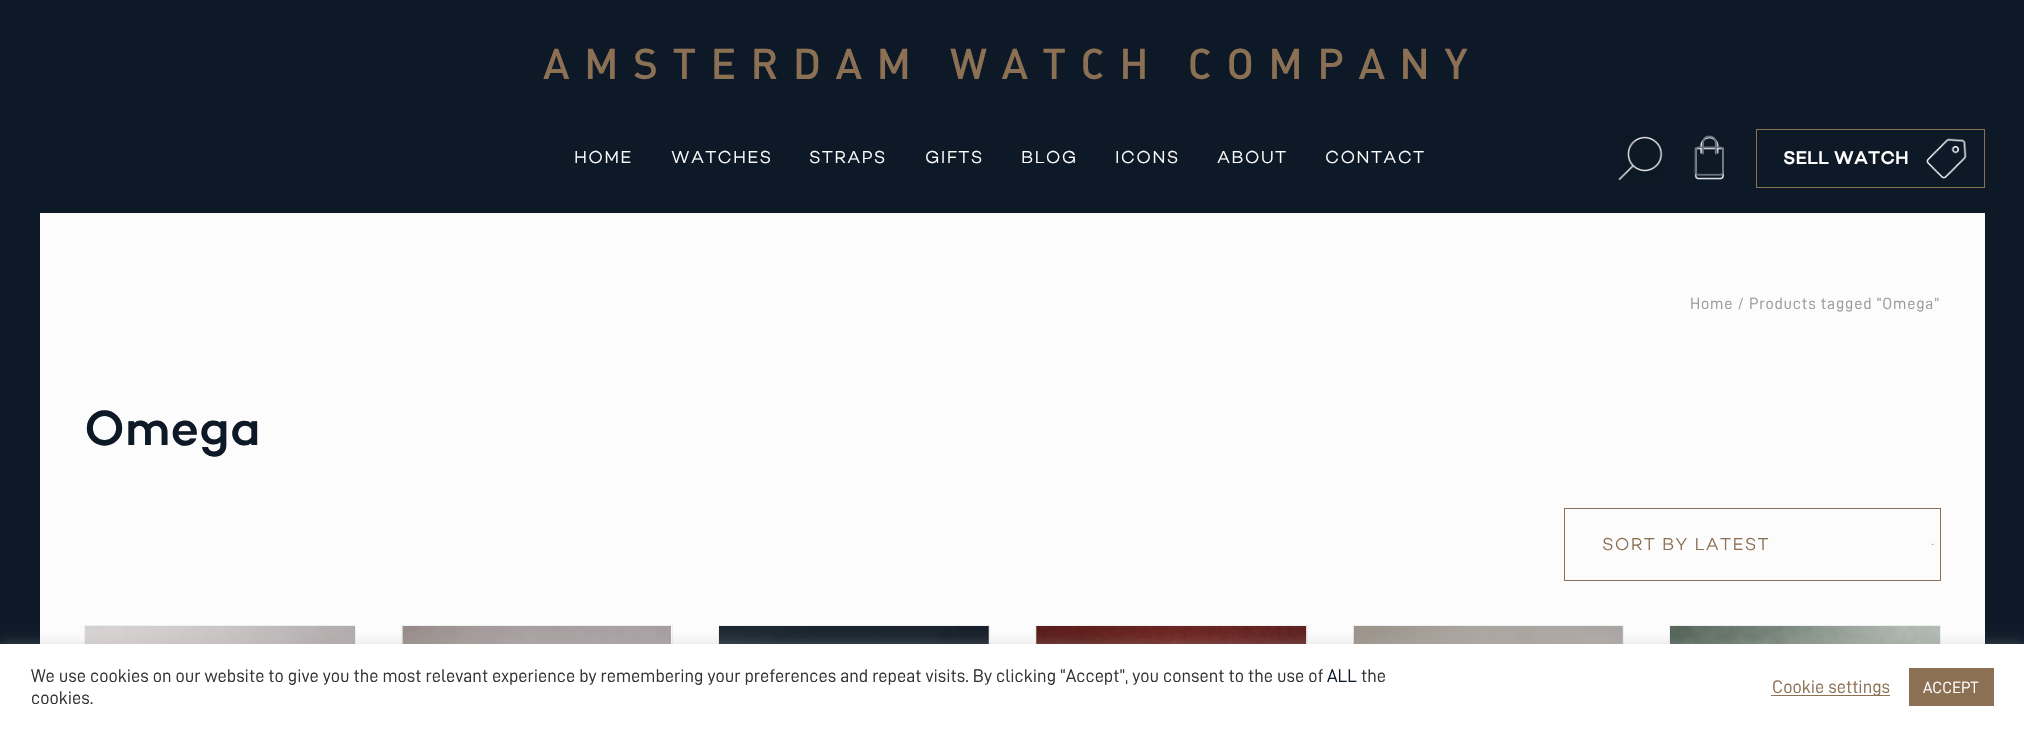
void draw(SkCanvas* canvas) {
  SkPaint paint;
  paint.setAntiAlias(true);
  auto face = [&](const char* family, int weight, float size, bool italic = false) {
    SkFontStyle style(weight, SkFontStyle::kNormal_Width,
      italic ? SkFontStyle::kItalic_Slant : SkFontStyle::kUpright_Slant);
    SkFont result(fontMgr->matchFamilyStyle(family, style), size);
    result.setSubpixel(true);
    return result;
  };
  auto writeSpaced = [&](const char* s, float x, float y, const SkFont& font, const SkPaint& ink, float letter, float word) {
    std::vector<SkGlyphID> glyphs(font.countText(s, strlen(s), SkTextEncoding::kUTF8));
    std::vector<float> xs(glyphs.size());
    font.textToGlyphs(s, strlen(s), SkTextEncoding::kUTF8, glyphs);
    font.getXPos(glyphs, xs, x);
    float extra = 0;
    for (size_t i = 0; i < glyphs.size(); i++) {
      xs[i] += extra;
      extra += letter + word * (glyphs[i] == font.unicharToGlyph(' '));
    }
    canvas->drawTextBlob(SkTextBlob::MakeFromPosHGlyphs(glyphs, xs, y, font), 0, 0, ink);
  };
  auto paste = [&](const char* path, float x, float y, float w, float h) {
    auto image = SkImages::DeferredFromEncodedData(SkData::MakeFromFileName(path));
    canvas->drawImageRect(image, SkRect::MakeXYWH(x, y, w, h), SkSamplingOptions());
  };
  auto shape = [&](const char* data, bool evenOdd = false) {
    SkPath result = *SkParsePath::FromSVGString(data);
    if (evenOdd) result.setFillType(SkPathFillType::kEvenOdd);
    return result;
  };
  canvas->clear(0xff0d1927);
  paste("img/1.png", 1618, 136, 45, 44);
  paint.setColor(0x0d000000);
  canvas->drawRect(SkRect::MakeXYWH(1619, 136, 44, 44), paint);
  paste("img/2.png", 1694, 137, 30, 43);
  paste("img/3.png", 1694, 135, 30, 41);
  paste("img/4.png", 1926, 138, 41, 41);
  paint.setStroke(true);
  paint.setStrokeWidth(1);
  paint.setColor(0xff8c7054);
  canvas->drawRect(SkRect::MakeXYWH(1756.5f, 129.5f, 228, 58), paint);
  paint.setStroke(false);
  paint.setColor(0xfffcfcfc);
  canvas->drawRect(SkRect::MakeXYWH(40, 213, 1945, 431), paint);
  paint.setColor(0xff000000);
  canvas->drawPath(shape("M1931.5 543.5L1932.5 544.5L1934 543.5L1932.5 545Z"), paint);
  paint.setStroke(true);
  paint.setColor(0xff8c7054);
  canvas->drawRect(SkRect::MakeXYWH(1564.5f, 508.5f, 376, 72), paint);
  paint.setColor(0xffedf1f2);
  canvas->drawRect(SkRect::MakeXYWH(84.5f, 625.5f, 271, 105), paint);
  paste("img/5.png", 85, 626, 270, 18);
  canvas->drawRect(SkRect::MakeXYWH(401.5f, 625.5f, 271, 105), paint);
  paste("img/6.png", 402, 626, 269, 18);
  canvas->drawRect(SkRect::MakeXYWH(718.5f, 625.5f, 271, 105), paint);
  paste("img/7.png", 719, 626, 270, 18);
  canvas->drawRect(SkRect::MakeXYWH(1035.5f, 625.5f, 272, 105), paint);
  paste("img/8.png", 1036, 626, 271, 18);
  canvas->drawRect(SkRect::MakeXYWH(1353.5f, 625.5f, 270, 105), paint);
  paste("img/9.png", 1353, 626, 270, 18);
  canvas->drawRect(SkRect::MakeXYWH(1669.5f, 625.5f, 271, 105), paint);
  paste("img/10.png", 1670, 626, 270, 18);
  paint.setStroke(false);
  paint.setColor(0x4dacabab);
  paint.setMaskFilter(SkMaskFilter::MakeBlur(kNormal_SkBlurStyle, 6));
  canvas->drawRect(SkRect::MakeXYWH(0, 643, 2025, 86), paint);
  paint.setMaskFilter(nullptr);
  {
    const struct { float x, y, w, h; SkColor color; } items[] = {
      {0, 644, 2024, 86, 0xffffffff},
      {1771, 695, 119, 1, 0xff8c7054},
      {1909, 668, 85, 38, 0xff8c7054},
    };
    for (auto [x, y, w, h, color] : items) {
      paint.setColor(color);
      canvas->drawRect(SkRect::MakeXYWH(x, y, w, h), paint);
    }
  }
  auto f0 = face("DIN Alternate", 500, 42.5f);
  writeSpaced("AMSTERDAM WATCH COMPANY", 543, 79, f0, paint, 14.4f, 0);
  auto f1 = face("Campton", 300, 17.5f);
  paint.setColor(0xffffffff);
  {
    const struct { const char* s; float x, y; } items[] = {
      {"HOME", 574, 163},
      {"WATCHES", 671, 163},
      {"STRAPS", 809, 163},
      {"GIFTS", 925, 163},
      {"BLOG", 1021, 163},
      {"ICONS", 1115, 163},
      {"ABOUT", 1217, 163},
      {"CONTACT", 1325, 163},
    };
    for (auto [s, x, y] : items) {
      writeSpaced(s, x, y, f1, paint, 1.25f, 0);
    }
  }
  auto f2 = face("Campton", 500, 18.75f);
  canvas->drawString("SELL WATCH", 1783, 164, f2, paint);
  auto f3 = face("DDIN", 400, 16.25f);
  paint.setColor(0xff999999);
  writeSpaced("Home / Products tagged “Omega”", 1690, 309, f3, paint, 0.8f, 0);
  auto f4 = face("Campton", 500, 50);
  paint.setColor(0xff0d1927);
  canvas->drawString("Omega", 84, 445, f4, paint);
  paint.setColor(0xff8c7054);
  writeSpaced("SORT BY LATEST", 1602, 550, f1, paint, 1.25f, 0);
  auto f5 = face("DDIN", 400, 18.33f);
  paint.setColor(0xff333333);
  canvas->drawString("We use cookies on our website to give you the most relevant experience by remembering your preferences and repeat visits. By clicking “Accept”, you consent to the use of", 31, 682, f5, paint);
  paint.setColor(0xff0d1927);
  canvas->drawString("ALL", 1327, 682, f5, paint);
  paint.setColor(0xff333333);
  canvas->drawString("the", 1361, 682, f5, paint);
  canvas->drawString("cookies.", 31, 704, f5, paint);
  paint.setColor(0xff8c7054);
  canvas->drawString("Cookie settings", 1772, 693, f5, paint);
  paint.setColor(0xffffffff);
  canvas->drawString("ACCEPT", 1923, 693, f3, paint);
}
